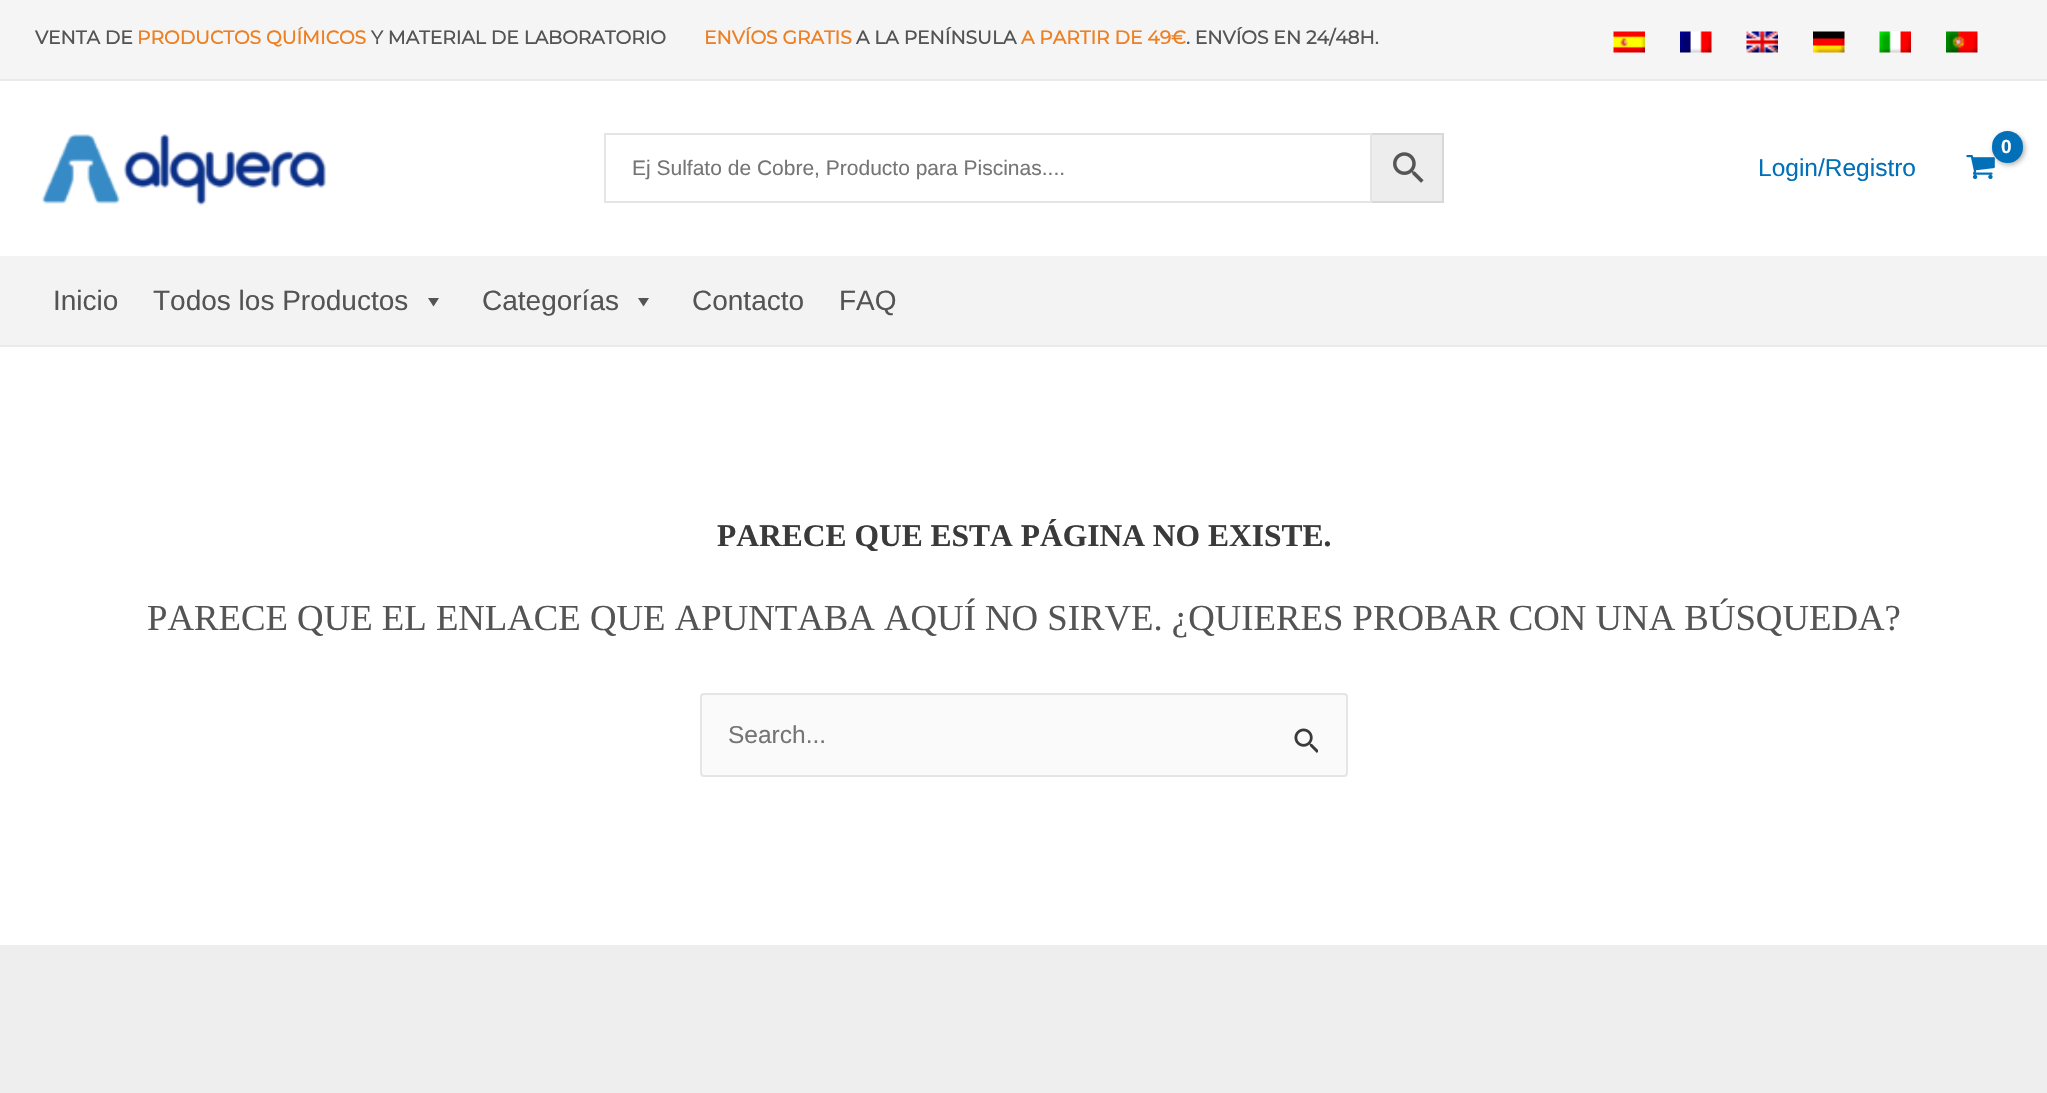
void draw(SkCanvas* canvas) {
  SkPaint paint;
  paint.setAntiAlias(true);
  auto face = [&](const char* family, int weight, float size, bool italic = false) {
    SkFontStyle style(weight, SkFontStyle::kNormal_Width,
      italic ? SkFontStyle::kItalic_Slant : SkFontStyle::kUpright_Slant);
    SkFont result(fontMgr->matchFamilyStyle(family, style), size);
    result.setSubpixel(true);
    return result;
  };
  auto writeSpaced = [&](const char* s, float x, float y, const SkFont& font, const SkPaint& ink, float letter, float word) {
    std::vector<SkGlyphID> glyphs(font.countText(s, strlen(s), SkTextEncoding::kUTF8));
    std::vector<float> xs(glyphs.size());
    font.textToGlyphs(s, strlen(s), SkTextEncoding::kUTF8, glyphs);
    font.getXPos(glyphs, xs, x);
    float extra = 0;
    for (size_t i = 0; i < glyphs.size(); i++) {
      xs[i] += extra;
      extra += letter + word * (glyphs[i] == font.unicharToGlyph(' '));
    }
    canvas->drawTextBlob(SkTextBlob::MakeFromPosHGlyphs(glyphs, xs, y, font), 0, 0, ink);
  };
  auto paste = [&](const char* path, float x, float y, float w, float h) {
    auto image = SkImages::DeferredFromEncodedData(SkData::MakeFromFileName(path));
    canvas->drawImageRect(image, SkRect::MakeXYWH(x, y, w, h), SkSamplingOptions());
  };
  auto shape = [&](const char* data, bool evenOdd = false) {
    SkPath result = *SkParsePath::FromSVGString(data);
    if (evenOdd) result.setFillType(SkPathFillType::kEvenOdd);
    return result;
  };
  canvas->clear(0xffffffff);
  paint.setColor(0xfff5f5f5);
  canvas->drawRect(SkRect::MakeXYWH(0, 0, 2047, 79), paint);
  paint.setColor(0xffeaeaea);
  canvas->drawRect(SkRect::MakeXYWH(0, 79, 2047, 2), paint);
  paste("img/1.png", 1613, 31, 32, 22);
  paste("img/2.png", 1680, 31, 32, 22);
  paste("img/3.png", 1746, 31, 32, 22);
  paste("img/4.png", 1813, 31, 32, 22);
  paste("img/5.png", 1879, 31, 32, 22);
  paste("img/6.png", 1946, 31, 32, 22);
  paste("img/7.png", 41, 134, 285, 72);
  paint.setColor(0xffededed);
  canvas->drawRect(SkRect::MakeXYWH(1371, 134, 72, 68), paint);
  paint.setStroke(true);
  paint.setStrokeWidth(2);
  paint.setColor(0xffd8d8d8);
  canvas->drawRect(SkRect::MakeXYWH(1371, 134, 72, 68), paint);
  paint.setColor(0xffe5e5e5);
  canvas->drawRect(SkRect::MakeXYWH(605, 134, 766, 68), paint);
  paste("img/8.png", 1393, 152, 31, 31);
  paste("img/9.png", 1966, 155, 29, 24);
  paint.setStroke(false);
  paint.setColor(0x4d000000);
  paint.setMaskFilter(SkMaskFilter::MakeBlur(kNormal_SkBlurStyle, 2.5f));
  canvas->drawRoundRect(SkRect::MakeXYWH(1993, 133, 32, 32), 16, 16, paint);
  paint.setMaskFilter(nullptr);
  paint.setColor(0xff0170b9);
  canvas->drawRoundRect(SkRect::MakeXYWH(1992, 131, 31, 32), 15.5f, 15.5f, paint);
  paint.setColor(0xfff3f3f3);
  canvas->drawRect(SkRect::MakeXYWH(0, 256, 2047, 89), paint);
  paint.setColor(0xffeaeaea);
  canvas->drawRect(SkRect::MakeXYWH(0, 345, 2047, 2), paint);
  paint.setColor(0xff555454);
  canvas->drawPath(shape("M439 298L433.5 306.5L428 298Z"), paint);
  canvas->drawPath(shape("M649 298L643.5 306.5L638 298Z"), paint);
  paint.setColor(0xfffafafa);
  canvas->drawRoundRect(SkRect::MakeXYWH(701, 694, 646, 82), 3, 3, paint);
  paint.setStroke(true);
  paint.setColor(0xffe5e5e5);
  canvas->drawRoundRect(SkRect::MakeXYWH(701, 694, 646, 82), 3, 3, paint);
  paste("img/10.png", 1294, 728, 24, 25);
  paint.setStroke(false);
  paint.setColor(0xffeeeeee);
  canvas->drawRect(SkRect::MakeXYWH(0, 945, 2047, 148), paint);
  auto f0 = face("Montserrat", 700, 18.7f);
  paint.setColor(0xff555454);
  canvas->drawString("VENTA DE", 35, 44, f0, paint);
  paint.setColor(0xffee8024);
  canvas->drawString("PRODUCTOS QUÍMICOS", 137, 44, f0, paint);
  paint.setColor(0xff555454);
  canvas->drawString("Y MATERIAL DE LABORATORIO", 371, 44, f0, paint);
  paint.setColor(0xffee8024);
  canvas->drawString("ENVÍOS GRATIS", 704, 44, f0, paint);
  paint.setColor(0xff555454);
  canvas->drawString("A LA PENÍNSULA", 856, 44, f0, paint);
  paint.setColor(0xffee8024);
  canvas->drawString("A PARTIR DE 49€", 1021, 44, f0, paint);
  paint.setColor(0xff555454);
  canvas->drawString(". ENVÍOS EN 24/48H.", 1186, 44, f0, paint);
  auto f1 = face("Liberation Sans", 400, 21);
  paint.setColor(0xff757575);
  canvas->drawString("Ej Sulfato de Cobre, Producto para Piscinas....", 632, 175, f1, paint);
  auto f2 = face("Liberation Sans", 700, 19);
  paint.setColor(0xffffffff);
  writeSpaced("0", 2001, 153, f2, paint, -1, 0);
  auto f3 = face("Liberation Sans", 400, 24.5f);
  paint.setColor(0xff0170b9);
  canvas->drawString("Login/Registro", 1758, 176, f3, paint);
  auto f4 = face("Liberation Sans", 400, 28);
  paint.setColor(0xff555454);
  {
    const struct { const char* s; float x, y; } items[] = {
      {"Inicio", 53, 310},
      {"Todos los Productos", 153, 310},
      {"Categorías", 482, 310},
      {"Contacto", 692, 310},
      {"FAQ", 839, 310},
    };
    for (auto [s, x, y] : items) {
      canvas->drawString(s, x, y, f4, paint);
    }
  }
  auto f5 = face("Liberation Serif", 700, 31.5f);
  paint.setColor(0xff3a3a3a);
  canvas->drawString("PARECE QUE ESTA PÁGINA NO EXISTE.", 717, 546, f5, paint);
  auto f6 = face("Liberation Serif", 400, 36.75f);
  paint.setColor(0xff555454);
  canvas->drawString("PARECE QUE EL ENLACE QUE APUNTABA AQUÍ NO SIRVE. ¿QUIERES PROBAR CON UNA BÚSQUEDA?", 147, 630, f6, paint);
  paint.setColor(0xff757575);
  canvas->drawString("Search...", 728, 743, f3, paint);
}
